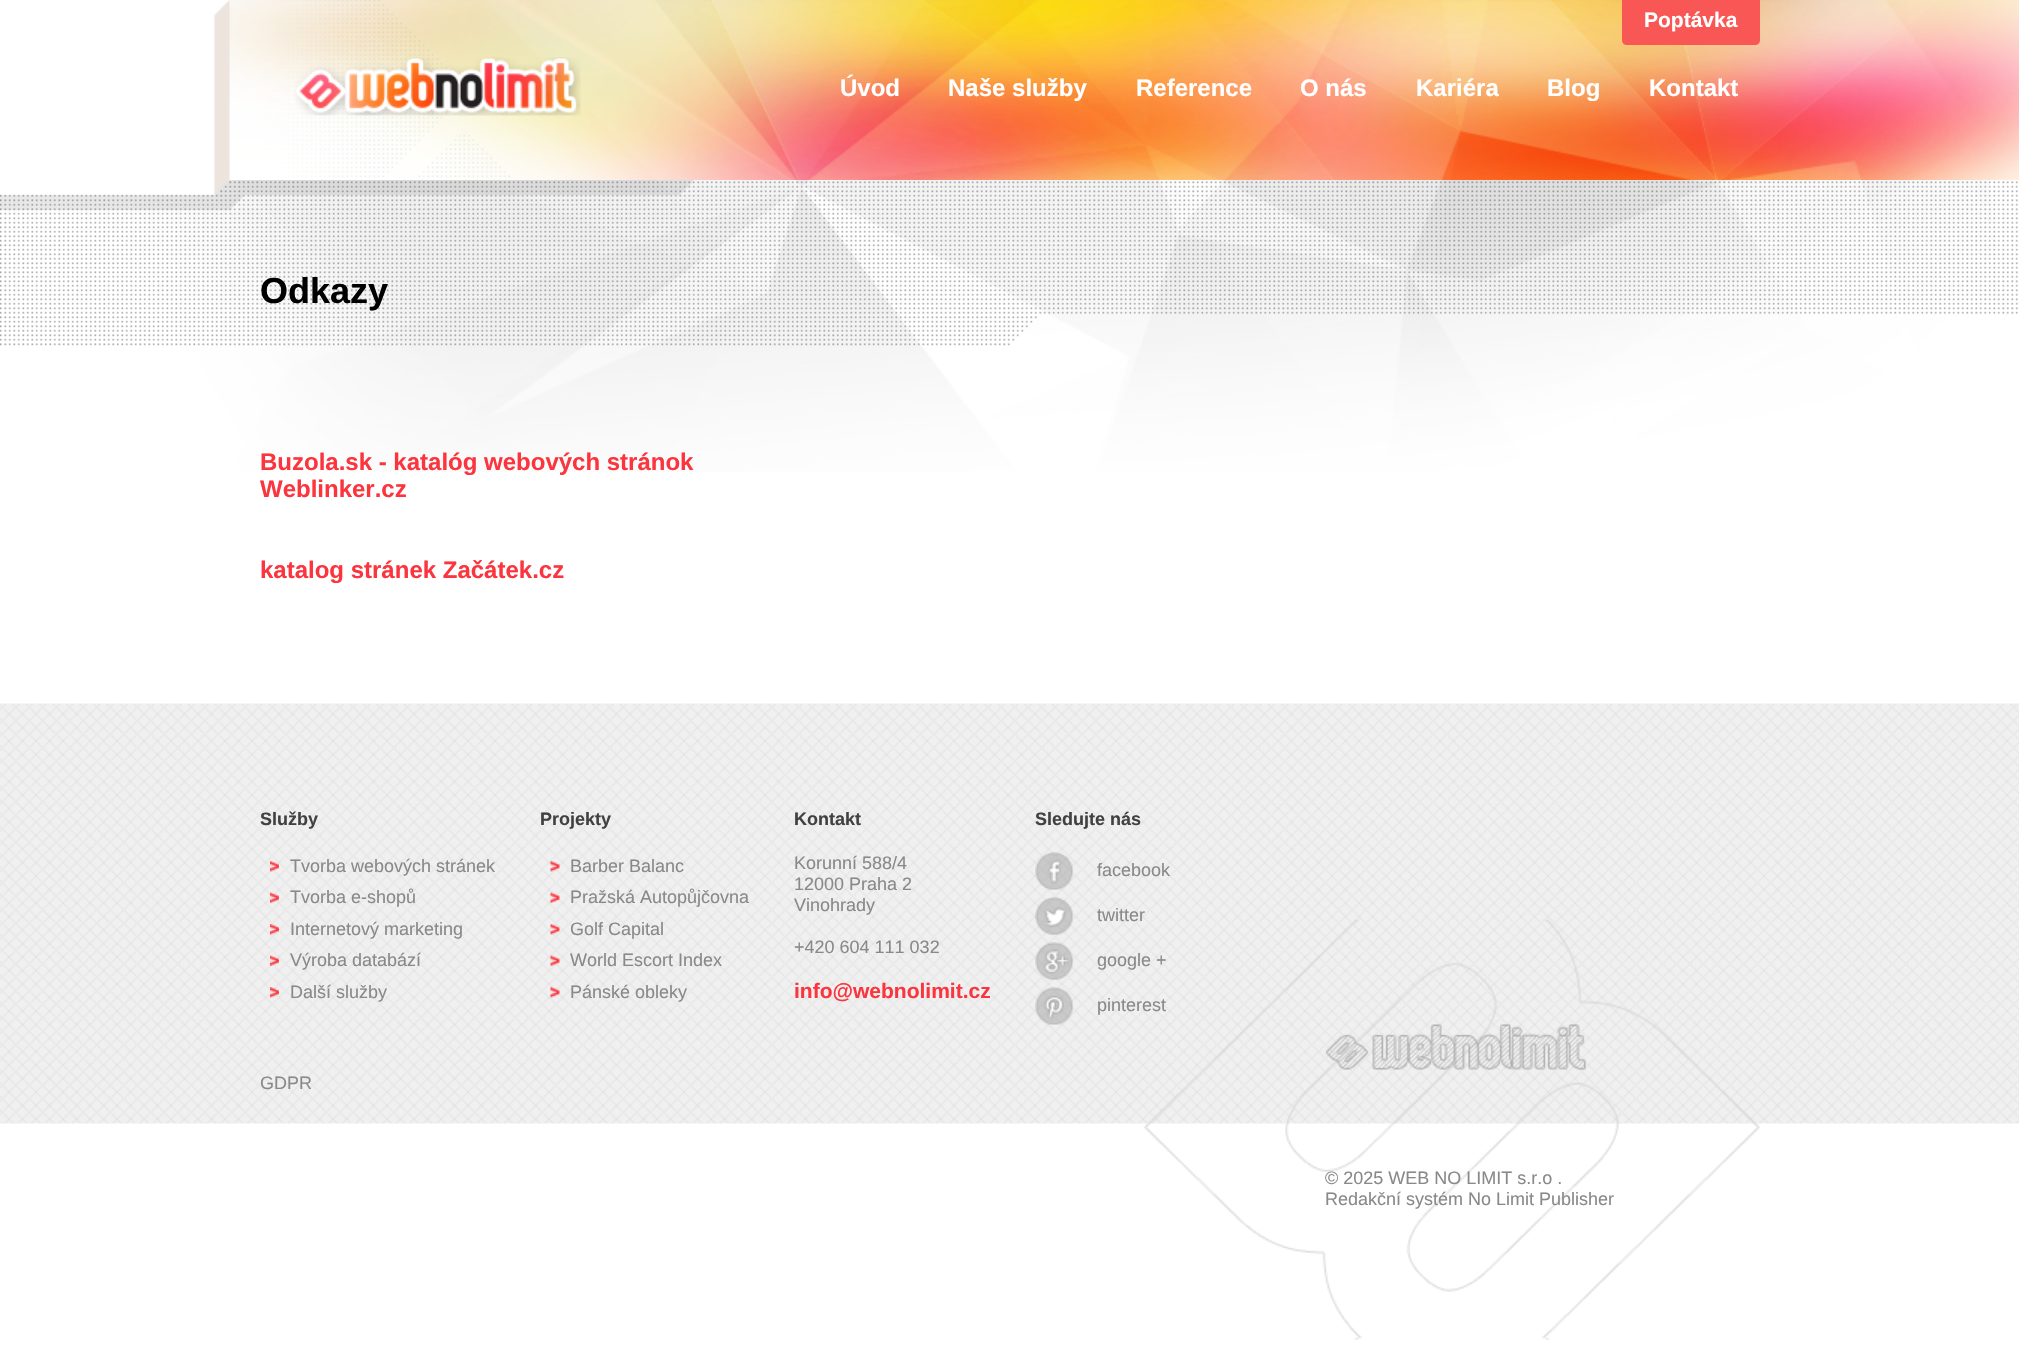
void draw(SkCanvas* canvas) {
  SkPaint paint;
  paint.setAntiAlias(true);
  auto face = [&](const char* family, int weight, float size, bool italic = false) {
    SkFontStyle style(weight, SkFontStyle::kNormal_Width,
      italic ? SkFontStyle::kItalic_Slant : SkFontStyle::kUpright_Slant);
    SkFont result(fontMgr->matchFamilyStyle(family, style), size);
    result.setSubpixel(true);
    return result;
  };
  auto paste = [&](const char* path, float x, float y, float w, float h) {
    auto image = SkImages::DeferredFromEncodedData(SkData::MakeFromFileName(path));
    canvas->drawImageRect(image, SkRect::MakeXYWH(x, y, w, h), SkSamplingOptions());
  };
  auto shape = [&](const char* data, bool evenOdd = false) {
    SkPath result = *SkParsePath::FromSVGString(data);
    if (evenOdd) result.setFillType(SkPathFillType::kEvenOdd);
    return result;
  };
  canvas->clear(0xffffffff);
  paste("img/1.png", 214, 0, 1805, 180);
  paint.setColor(0xfff95755);
  canvas->drawPath(shape("M1622 0H1760V40C1760 43 1758 45 1755 45H1627C1624 45 1622 43 1622 40Z"), paint);
  paste("img/2.png", 295, 57, 286, 59);
  paste("img/3.png", 0, 180, 2018, 292);
  paste("img/4.png", 0, 703, 2019, 421);
  paste("img/5.png", 270, 861, 9, 11);
  paste("img/6.png", 270, 892, 9, 11);
  paste("img/7.png", 270, 924, 9, 11);
  paste("img/8.png", 270, 955, 9, 11);
  paste("img/9.png", 270, 987, 9, 11);
  paste("img/10.png", 550, 861, 10, 11);
  paste("img/11.png", 550, 892, 10, 11);
  paste("img/12.png", 550, 924, 10, 11);
  paste("img/13.png", 550, 955, 10, 11);
  paste("img/14.png", 550, 987, 10, 11);
  paste("img/15.png", 1035, 852, 39, 38);
  paste("img/16.png", 1035, 897, 39, 38);
  paste("img/17.png", 1035, 942, 39, 38);
  paste("img/18.png", 1035, 987, 39, 38);
  paste("img/19.png", 1144, 919, 616, 421);
  paste("img/20.png", 1325, 1024, 261, 46);
  auto f0 = face("Liberation Sans", 700, 21);
  paint.setColor(0xffffffff);
  canvas->drawString("Poptávka", 1644, 27, f0, paint);
  auto f1 = face("Liberation Sans", 700, 24);
  {
    const struct { const char* s; float x, y; } items[] = {
      {"Úvod", 840, 96},
      {"Naše služby", 948, 96},
      {"Reference", 1136, 96},
      {"O nás", 1300, 96},
      {"Kariéra", 1416, 96},
      {"Blog", 1547, 96},
      {"Kontakt", 1649, 96},
    };
    for (auto [s, x, y] : items) {
      canvas->drawString(s, x, y, f1, paint);
    }
  }
  auto f2 = face("Liberation Sans", 700, 36);
  paint.setColor(0xff000000);
  canvas->drawString("Odkazy", 260, 303, f2, paint);
  paint.setColor(0xfffc343d);
  {
    const struct { const char* s; float x, y; } items[] = {
      {"Buzola.sk - katalóg webových stránok", 260, 470},
      {"Weblinker.cz", 260, 497},
      {"katalog stránek Začátek.cz", 260, 578},
    };
    for (auto [s, x, y] : items) {
      canvas->drawString(s, x, y, f1, paint);
    }
  }
  auto f3 = face("Liberation Sans", 700, 18);
  paint.setColor(0xff414042);
  canvas->drawString("Služby", 260, 825, f3, paint);
  auto f4 = face("Liberation Sans", 400, 18);
  paint.setColor(0xff898989);
  {
    const struct { const char* s; float x, y; } items[] = {
      {"Tvorba webových stránek", 290, 872},
      {"Tvorba e-shopů", 290, 903},
      {"Internetový marketing", 290, 935},
      {"Výroba databází", 290, 966},
      {"Další služby", 290, 998},
      {"GDPR", 260, 1089},
    };
    for (auto [s, x, y] : items) {
      canvas->drawString(s, x, y, f4, paint);
    }
  }
  paint.setColor(0xff414042);
  canvas->drawString("Projekty", 540, 825, f3, paint);
  paint.setColor(0xff898989);
  {
    const struct { const char* s; float x, y; } items[] = {
      {"Barber Balanc", 570, 872},
      {"Pražská Autopůjčovna", 570, 903},
      {"Golf Capital", 570, 935},
      {"World Escort Index", 570, 966},
      {"Pánské obleky", 570, 998},
    };
    for (auto [s, x, y] : items) {
      canvas->drawString(s, x, y, f4, paint);
    }
  }
  paint.setColor(0xff414042);
  canvas->drawString("Kontakt", 794, 825, f3, paint);
  paint.setColor(0xff898989);
  {
    const struct { const char* s; float x, y; } items[] = {
      {"Korunní 588/4", 794, 869},
      {"12000 Praha 2", 794, 890},
      {"Vinohrady", 794, 911},
      {"+420 604 111 032", 794, 953},
    };
    for (auto [s, x, y] : items) {
      canvas->drawString(s, x, y, f4, paint);
    }
  }
  paint.setColor(0xfffc343d);
  canvas->drawString("info@webnolimit.cz", 794, 998, f0, paint);
  paint.setColor(0xff414042);
  canvas->drawString("Sledujte nás", 1035, 825, f3, paint);
  paint.setColor(0xff898989);
  {
    const struct { const char* s; float x, y; } items[] = {
      {"facebook", 1097, 876},
      {"twitter", 1097, 921},
      {"google +", 1097, 966},
      {"pinterest", 1097, 1011},
      {"© 2025 WEB NO LIMIT s.r.o .", 1325, 1184},
      {"Redakční systém No Limit Publisher", 1325, 1205},
    };
    for (auto [s, x, y] : items) {
      canvas->drawString(s, x, y, f4, paint);
    }
  }
}
